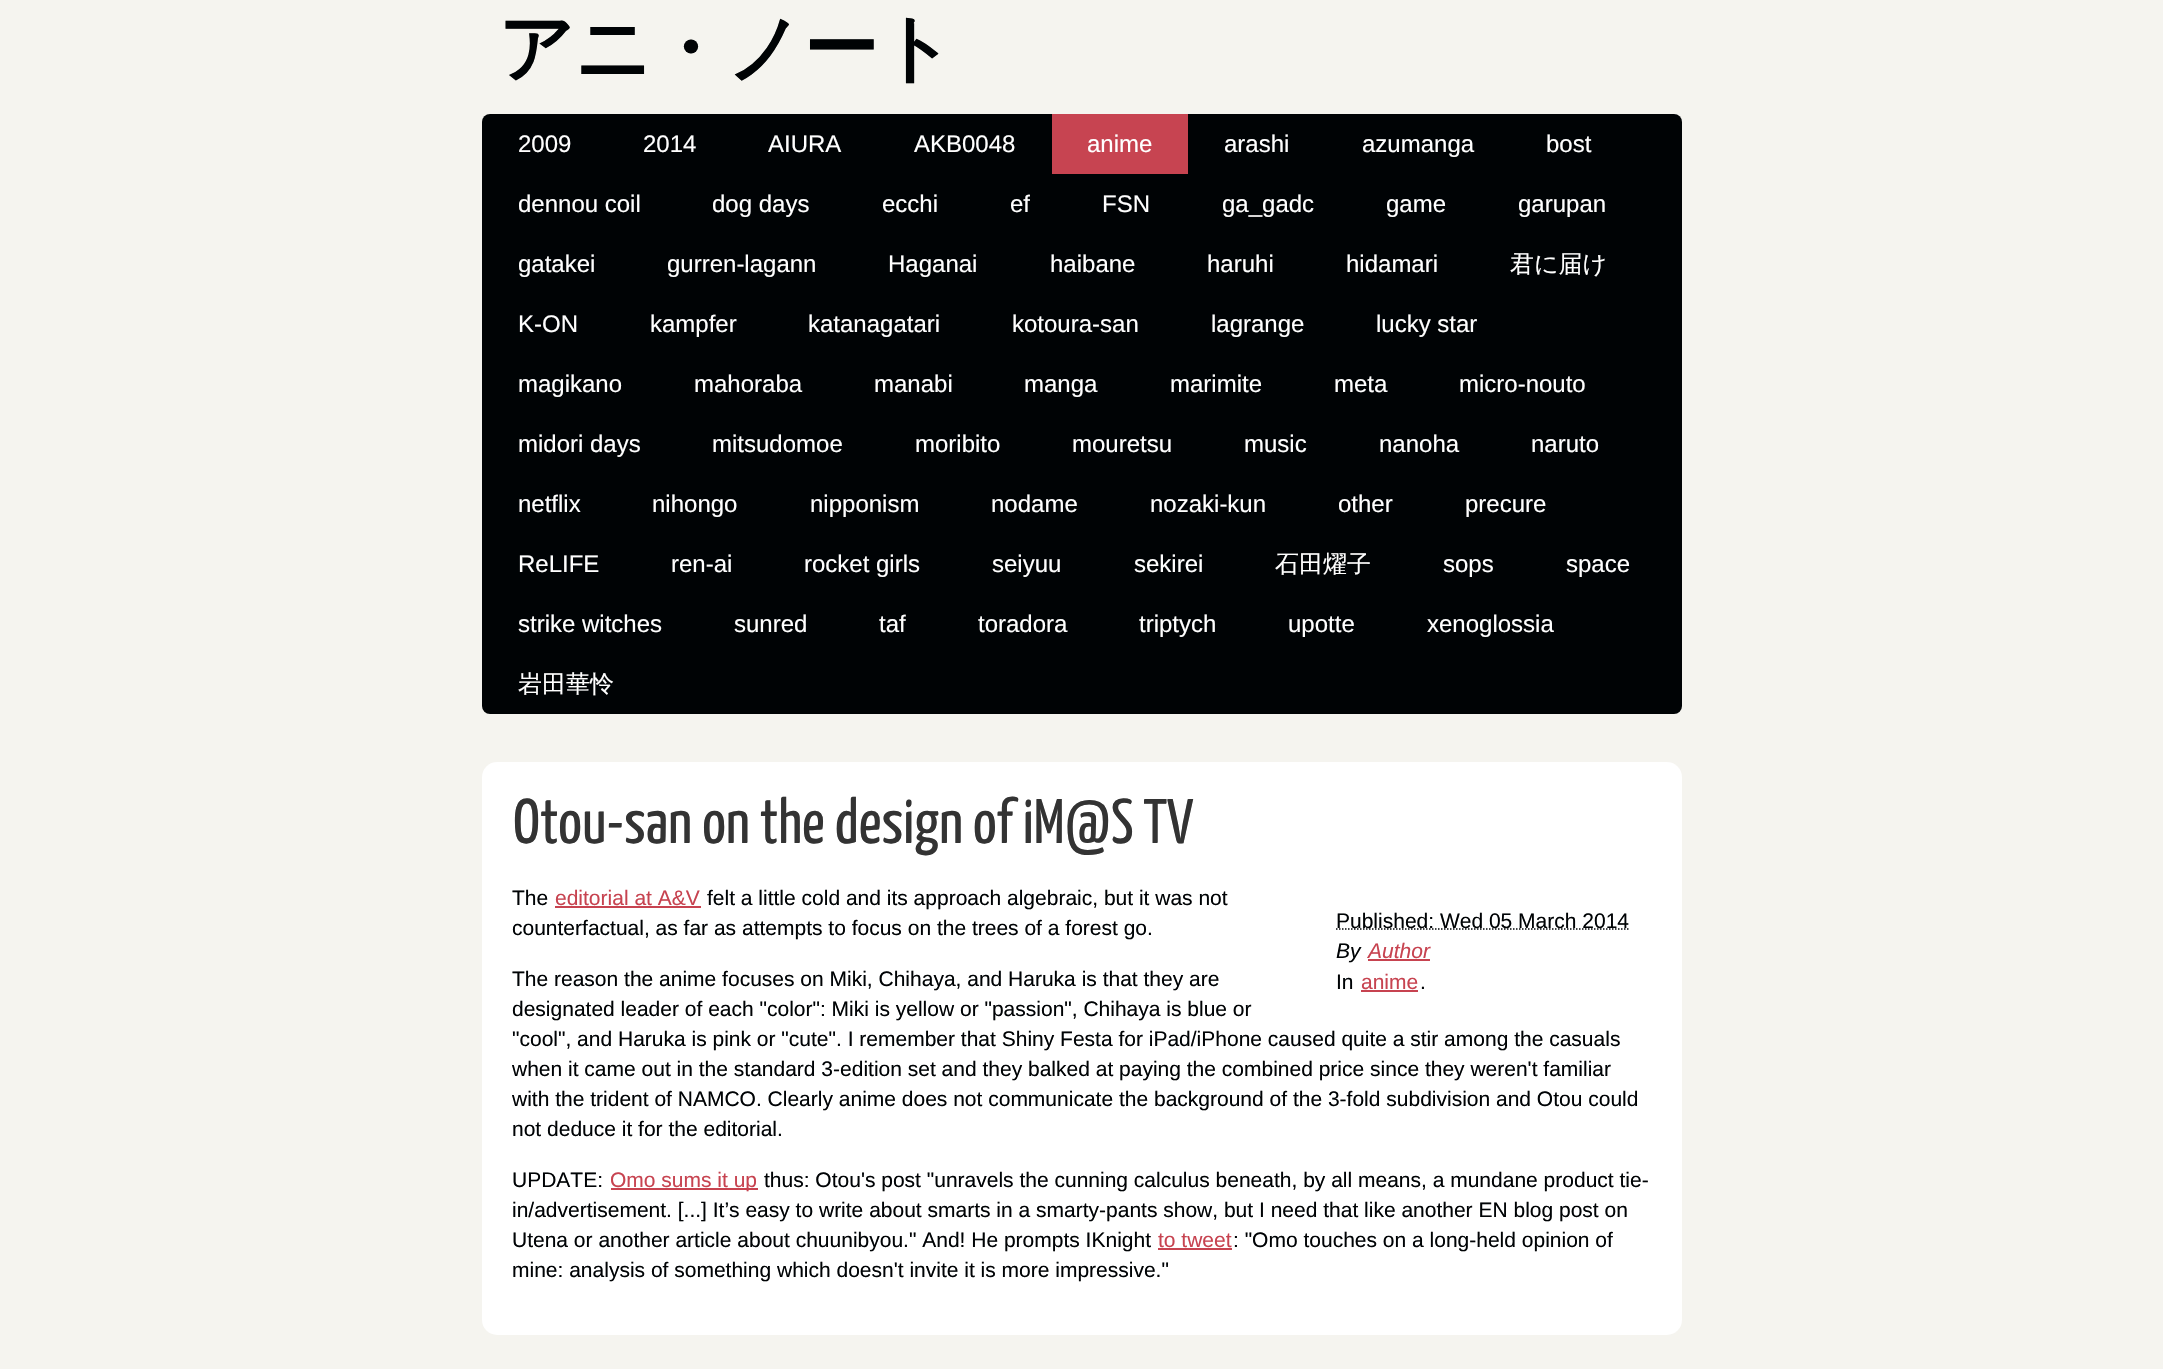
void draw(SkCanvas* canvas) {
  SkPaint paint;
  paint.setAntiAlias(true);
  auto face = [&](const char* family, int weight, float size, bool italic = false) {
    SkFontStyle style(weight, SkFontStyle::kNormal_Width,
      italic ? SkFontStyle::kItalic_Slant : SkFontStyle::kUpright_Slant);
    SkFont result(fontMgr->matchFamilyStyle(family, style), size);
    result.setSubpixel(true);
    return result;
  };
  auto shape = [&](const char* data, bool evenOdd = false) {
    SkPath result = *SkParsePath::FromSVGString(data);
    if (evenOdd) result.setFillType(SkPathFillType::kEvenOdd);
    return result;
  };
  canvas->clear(0xfff5f4ef);
  paint.setColor(0xff000305);
  canvas->drawRoundRect(SkRect::MakeXYWH(482, 114, 1200, 600), 8, 8, paint);
  paint.setColor(0xffc74451);
  canvas->drawRect(SkRect::MakeXYWH(1052, 114, 136, 60), paint);
  paint.setColor(0xffffffff);
  canvas->drawRoundRect(SkRect::MakeXYWH(482, 762, 1200, 573), 15, 15, paint);
  paint.setColor(0xffc74350);
  canvas->drawRect(SkRect::MakeXYWH(555, 906, 146, 2), paint);
  paint.setStroke(true);
  paint.setStrokeWidth(1.5f);
  paint.setColor(0xff000305);
  paint.setPathEffect(SkDashPathEffect::Make({{1.5f, 1.5f}}, 0));
  canvas->drawPath(shape("M1336 929H1629"), paint);
  paint.setPathEffect(nullptr);
  paint.setStroke(false);
  {
    const struct { float x, y, w, h; SkColor color; } items[] = {
      {1368, 959, 62, 2, 0xffc74350},
      {1361, 990, 57, 2, 0xffc74350},
      {611, 1188, 147, 2, 0xffc74350},
      {1158, 1248, 74, 2, 0xffc74350},
    };
    for (auto [x, y, w, h, color] : items) {
      paint.setColor(color);
      canvas->drawRect(SkRect::MakeXYWH(x, y, w, h), paint);
    }
  }
  auto f0 = face("WenQuanYi Zen Hei", 700, 75);
  paint.setColor(0xff000305);
  canvas->drawString("アニ・ノート", 498, 74, f0, paint);
  auto f1 = face("Liberation Sans", 400, 24);
  paint.setColor(0xffffffff);
  {
    const struct { const char* s; float x, y; } items[] = {
      {"2009", 518, 152},
      {"2014", 643, 152},
      {"AIURA", 768, 152},
      {"AKB0048", 914, 152},
      {"anime", 1087, 152},
      {"arashi", 1224, 152},
      {"azumanga", 1362, 152},
      {"bost", 1546, 152},
      {"dennou coil", 518, 212},
      {"dog days", 712, 212},
      {"ecchi", 882, 212},
      {"ef", 1010, 212},
      {"FSN", 1102, 212},
      {"ga_gadc", 1222, 212},
      {"game", 1386, 212},
      {"garupan", 1518, 212},
      {"gatakei", 518, 272},
      {"gurren-lagann", 667, 272},
      {"Haganai", 888, 272},
      {"haibane", 1050, 272},
      {"haruhi", 1207, 272},
      {"hidamari", 1346, 272},
    };
    for (auto [s, x, y] : items) {
      canvas->drawString(s, x, y, f1, paint);
    }
  }
  auto f2 = face("WenQuanYi Zen Hei", 500, 24);
  canvas->drawString("君に届け", 1510, 272, f2, paint);
  {
    const struct { const char* s; float x, y; } items[] = {
      {"K-ON", 518, 332},
      {"kampfer", 650, 332},
      {"katanagatari", 808, 332},
      {"kotoura-san", 1012, 332},
      {"lagrange", 1211, 332},
      {"lucky star", 1376, 332},
      {"magikano", 518, 392},
      {"mahoraba", 694, 392},
      {"manabi", 874, 392},
      {"manga", 1024, 392},
      {"marimite", 1170, 392},
      {"meta", 1334, 392},
      {"micro-nouto", 1459, 392},
      {"midori days", 518, 452},
      {"mitsudomoe", 712, 452},
      {"moribito", 915, 452},
      {"mouretsu", 1072, 452},
      {"music", 1244, 452},
      {"nanoha", 1379, 452},
      {"naruto", 1531, 452},
      {"netflix", 518, 512},
      {"nihongo", 652, 512},
      {"nipponism", 810, 512},
      {"nodame", 991, 512},
      {"nozaki-kun", 1150, 512},
      {"other", 1338, 512},
      {"precure", 1465, 512},
      {"ReLIFE", 518, 572},
      {"ren-ai", 671, 572},
      {"rocket girls", 804, 572},
      {"seiyuu", 992, 572},
      {"sekirei", 1134, 572},
    };
    for (auto [s, x, y] : items) {
      canvas->drawString(s, x, y, f1, paint);
    }
  }
  canvas->drawString("石田燿子", 1275, 572, f2, paint);
  {
    const struct { const char* s; float x, y; } items[] = {
      {"sops", 1443, 572},
      {"space", 1566, 572},
      {"strike witches", 518, 632},
      {"sunred", 734, 632},
      {"taf", 879, 632},
      {"toradora", 978, 632},
      {"triptych", 1139, 632},
      {"upotte", 1288, 632},
      {"xenoglossia", 1427, 632},
    };
    for (auto [s, x, y] : items) {
      canvas->drawString(s, x, y, f1, paint);
    }
  }
  canvas->drawString("岩田華怜", 518, 692, f2, paint);
  auto f3 = face("Yanone Kaffeesatz", 400, 63);
  paint.setColor(0xff333333);
  canvas->drawString("Otou-san on the design of iM@S TV", 513, 843, f3, paint);
  auto f4 = face("Liberation Sans", 400, 21);
  paint.setColor(0xff000305);
  canvas->drawString("The", 512, 905, f4, paint);
  paint.setColor(0xffc74350);
  canvas->drawString("editorial at A&V", 555, 905, f4, paint);
  paint.setColor(0xff000305);
  {
    const struct { const char* s; float x, y; } items[] = {
      {"felt a little cold and its approach algebraic, but it was not", 707, 905},
      {"counterfactual, as far as attempts to focus on the trees of a forest go.", 512, 935},
      {"Published: Wed 05 March 2014", 1336, 928},
    };
    for (auto [s, x, y] : items) {
      canvas->drawString(s, x, y, f4, paint);
    }
  }
  auto f5 = face("Liberation Sans", 400, 21, true);
  canvas->drawString("By", 1336, 958, f5, paint);
  paint.setColor(0xffc74350);
  canvas->drawString("Author", 1368, 958, f5, paint);
  paint.setColor(0xff000305);
  canvas->drawString("In", 1336, 989, f4, paint);
  paint.setColor(0xffc74350);
  canvas->drawString("anime", 1361, 989, f4, paint);
  paint.setColor(0xff000305);
  {
    const struct { const char* s; float x, y; } items[] = {
      {".", 1420, 989},
      {"The reason the anime focuses on Miki, Chihaya, and Haruka is that they are", 512, 986},
      {"designated leader of each \"color\": Miki is yellow or \"passion\", Chihaya is blue or", 512, 1016},
      {"\"cool\", and Haruka is pink or \"cute\". I remember that Shiny Festa for iPad/iPhone caused quite a stir among the casuals", 512, 1046},
      {"when it came out in the standard 3-edition set and they balked at paying the combined price since they weren't familiar", 512, 1076},
      {"with the trident of NAMCO. Clearly anime does not communicate the background of the 3-fold subdivision and Otou could", 512, 1106},
      {"not deduce it for the editorial.", 512, 1136},
      {"UPDATE:", 512, 1187},
    };
    for (auto [s, x, y] : items) {
      canvas->drawString(s, x, y, f4, paint);
    }
  }
  paint.setColor(0xffc74350);
  canvas->drawString("Omo sums it up", 610, 1187, f4, paint);
  paint.setColor(0xff000305);
  {
    const struct { const char* s; float x, y; } items[] = {
      {"thus: Otou's post \"unravels the cunning calculus beneath, by all means, a mundane product tie-", 764, 1187},
      {"in/advertisement. [...] It’s easy to write about smarts in a smarty-pants show, but I need that like another EN blog post on", 512, 1217},
      {"Utena or another article about chuunibyou.\" And! He prompts IKnight", 512, 1247},
    };
    for (auto [s, x, y] : items) {
      canvas->drawString(s, x, y, f4, paint);
    }
  }
  paint.setColor(0xffc74350);
  canvas->drawString("to tweet", 1158, 1247, f4, paint);
  paint.setColor(0xff000305);
  canvas->drawString(": \"Omo touches on a long-held opinion of", 1233, 1247, f4, paint);
  canvas->drawString("mine: analysis of something which doesn't invite it is more impressive.\"", 512, 1277, f4, paint);
}
